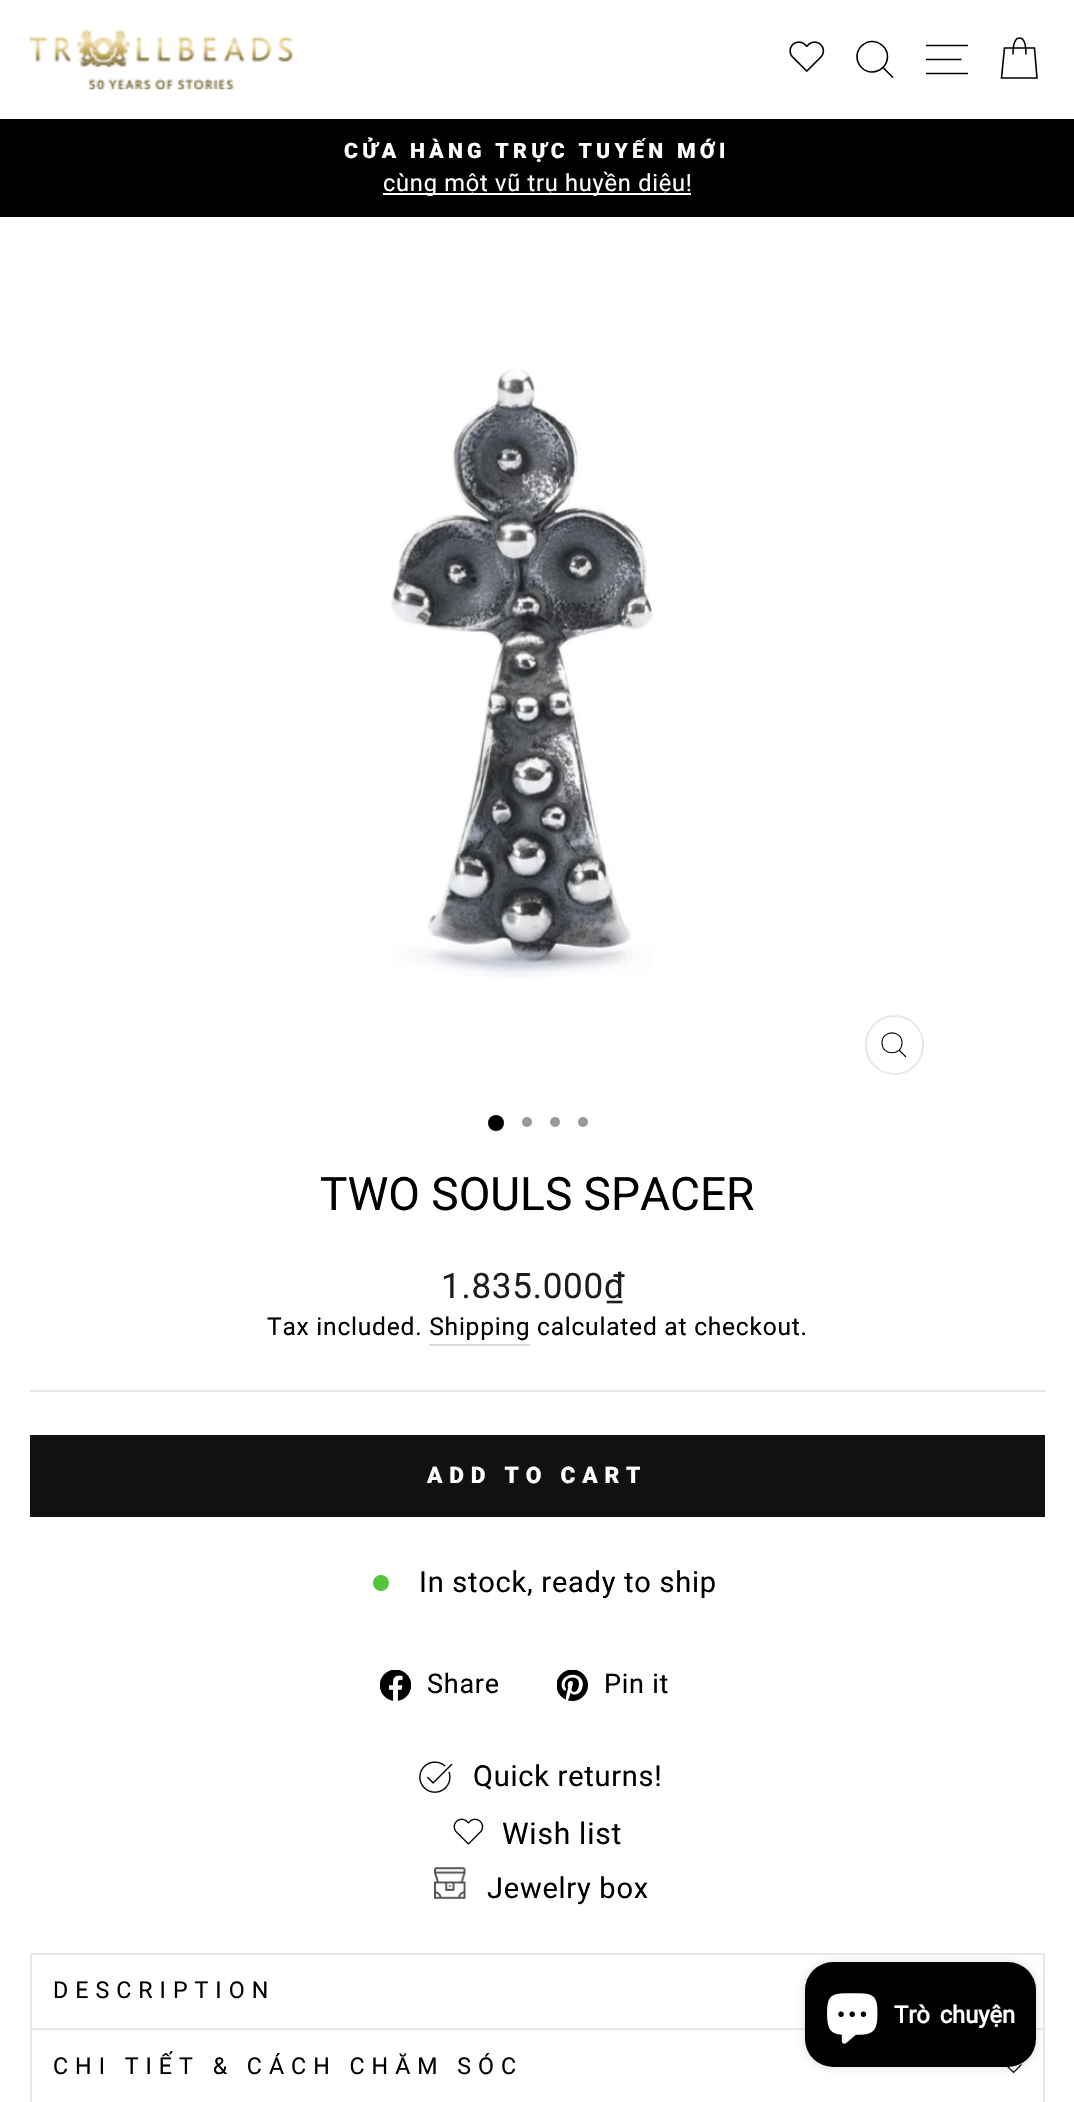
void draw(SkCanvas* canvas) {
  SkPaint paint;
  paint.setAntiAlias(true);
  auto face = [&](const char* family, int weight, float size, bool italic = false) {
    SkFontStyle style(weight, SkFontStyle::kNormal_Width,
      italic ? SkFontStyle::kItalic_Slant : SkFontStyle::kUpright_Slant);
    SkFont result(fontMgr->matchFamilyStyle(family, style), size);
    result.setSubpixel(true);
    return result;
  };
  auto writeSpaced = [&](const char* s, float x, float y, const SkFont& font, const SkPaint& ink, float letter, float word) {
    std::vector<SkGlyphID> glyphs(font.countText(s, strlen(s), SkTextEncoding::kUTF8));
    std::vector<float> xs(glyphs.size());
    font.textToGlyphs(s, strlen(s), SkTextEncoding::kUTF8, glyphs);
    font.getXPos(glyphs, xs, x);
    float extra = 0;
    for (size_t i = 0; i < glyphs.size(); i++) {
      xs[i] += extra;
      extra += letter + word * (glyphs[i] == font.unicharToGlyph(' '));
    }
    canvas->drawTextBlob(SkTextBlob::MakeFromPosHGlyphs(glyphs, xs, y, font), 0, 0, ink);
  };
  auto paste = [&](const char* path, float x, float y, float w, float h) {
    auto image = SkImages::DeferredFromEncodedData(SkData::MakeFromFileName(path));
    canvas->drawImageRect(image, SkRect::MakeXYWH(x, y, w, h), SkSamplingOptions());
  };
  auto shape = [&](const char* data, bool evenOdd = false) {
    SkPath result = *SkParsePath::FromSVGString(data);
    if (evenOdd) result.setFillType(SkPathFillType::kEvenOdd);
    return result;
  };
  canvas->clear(0xffffffff);
  paste("img/1.png", 29, 29, 264, 61);
  paste("img/2.png", 789, 41, 36, 31);
  paint.setStroke(true);
  paint.setStrokeWidth(1.6f);
  paint.setColor(0xff000000);
  canvas->drawPath(shape("M887.5 56.5C887.5 65 880.5 72 872 72C864 72 857 65 857 56.5C857 48.5 864 41.5 872 41.5C880.5 41.5 887.5 48.5 887.5 56.5ZM893 77.5L883 67.5"), paint);
  canvas->drawPath(shape("M926 45.5H968M926 59.5H961.5M926 73.5H968"), paint);
  canvas->drawPath(shape("M1013 54.5C1013 41.5 1015.5 38 1019.5 38C1023 38 1026 41.5 1026 54.5M1004.5 48H1034.5L1037 78H1001.5Z"), paint);
  paint.setStroke(false);
  canvas->drawRect(SkRect::MakeXYWH(0, 119, 1074, 98), paint);
  paint.setColor(0xffffffff);
  canvas->drawRect(SkRect::MakeXYWH(383, 193, 308, 2), paint);
  paste("img/3.png", 391, 368, 263, 610);
  paint.setStroke(true);
  paint.setStrokeWidth(2);
  paint.setColor(0xffe8e8e1);
  canvas->drawRoundRect(SkRect::MakeXYWH(866, 1016, 57, 58), 28.5f, 28.5f, paint);
  paint.setStrokeWidth(1.1f);
  paint.setColor(0xff000000);
  canvas->drawPath(shape("M902 1043C902 1056 882 1056 882 1043C882 1029.5 902 1029.5 902 1043ZM906 1057L899 1050"), paint);
  paint.setStroke(false);
  canvas->drawCircle(496, 1123, 8, paint);
  paint.setColor(0xff999999);
  canvas->drawCircle(527, 1122, 5, paint);
  canvas->drawCircle(555, 1122, 5, paint);
  canvas->drawCircle(583, 1122, 5, paint);
  {
    const struct { float x, y, w, h; SkColor color; } items[] = {
      {429, 1344, 101, 2, 0xffd9d9d9},
      {30, 1390, 1015, 2, 0xffe8e8e1},
      {30, 1435, 1015, 82, 0xff111111},
    };
    for (auto [x, y, w, h, color] : items) {
      paint.setColor(color);
      canvas->drawRect(SkRect::MakeXYWH(x, y, w, h), paint);
    }
  }
  paint.setColor(0xff54c63a);
  canvas->drawCircle(381, 1583, 8, paint);
  paste("img/4.png", 380, 1670, 31, 31);
  paste("img/5.png", 557, 1670, 31, 31);
  paste("img/6.png", 419, 1761, 34, 32);
  paste("img/7.png", 453, 1818, 31, 27);
  paste("img/8.png", 434, 1867, 32, 32);
  {
    const struct { float x, y, w, h; SkColor color; } items[] = {
      {30, 2028, 1015, 2, 0xffe8e8e1},
      {30, 1953, 1015, 2, 0xffe8e8e1},
      {1043, 1953, 2, 75, 0xffe8e8e1},
      {30, 1953, 2, 75, 0xffe8e8e1},
      {1043, 2030, 2, 72, 0xffe8e8e1},
      {30, 2030, 2, 72, 0xffe8e8e1},
    };
    for (auto [x, y, w, h, color] : items) {
      paint.setColor(color);
      canvas->drawRect(SkRect::MakeXYWH(x, y, w, h), paint);
    }
  }
  paint.setStroke(true);
  paint.setStrokeWidth(1.2f);
  paint.setColor(0xff000000);
  canvas->drawPath(shape("M1005.5 2064.5L1013.5 2072.5L1021.5 2064.5"), paint);
  paint.setStroke(false);
  paint.setColor(0x26000000);
  paint.setMaskFilter(SkMaskFilter::MakeBlur(kNormal_SkBlurStyle, 4.5f));
  canvas->drawRoundRect(SkRect::MakeXYWH(805, 1962, 231, 105), 28, 28, paint);
  paint.setMaskFilter(nullptr);
  paint.setColor(0xff000000);
  canvas->drawRoundRect(SkRect::MakeXYWH(805, 1962, 231, 105), 28, 28, paint);
  paste("img/9.png", 827, 1993, 51, 51);
  auto f0 = face("Roboto", 900, 21.25f);
  paint.setColor(0xffffffff);
  writeSpaced("CỬA HÀNG TRỰC TUYẾN MỚI", 344, 158, f0, paint, 4.25f, 0);
  auto f1 = face("Roboto", 400, 23.6f);
  writeSpaced("cùng một vũ trụ huyền diệu!", 383, 191, f1, paint, 0.75f, 0);
  auto f2 = face("Roboto", 400, 46);
  paint.setColor(0xff000000);
  canvas->drawString("TWO SOULS SPACER", 320, 1210, f2, paint);
  auto f3 = face("Roboto", 400, 35);
  paint.setColor(0xff1c1d1d);
  writeSpaced("1.835.000₫", 441, 1298, f3, paint, 0.75f, 0);
  auto f4 = face("Roboto", 400, 24.6f);
  paint.setColor(0xff000000);
  writeSpaced("Tax included. Shipping", 267, 1335, f4, paint, 0.75f, 0);
  writeSpaced("calculated at checkout.", 537, 1335, f4, paint, 0.75f, 0);
  auto f5 = face("Roboto", 900, 22.75f);
  paint.setColor(0xffffffff);
  writeSpaced("ADD TO CART", 427, 1483, f5, paint, 6.75f, 0);
  auto f6 = face("Roboto", 400, 29);
  paint.setColor(0xff000000);
  writeSpaced("In stock, ready to ship", 419, 1592, f6, paint, 0.75f, 0);
  auto f7 = face("Roboto", 400, 27);
  writeSpaced("Share", 427, 1693, f7, paint, 0.75f, 0);
  writeSpaced("Pin it", 604, 1693, f7, paint, 0.75f, 0);
  writeSpaced("Quick returns!", 473, 1786, f6, paint, 0.75f, 0);
  auto f8 = face("Roboto", 400, 30);
  writeSpaced("Wish list", 502, 1844, f8, paint, 0.75f, 0);
  writeSpaced("Jewelry box", 487, 1898, f6, paint, 0.75f, 0);
  auto f9 = face("Roboto", 400, 23.2f);
  writeSpaced("DESCRIPTION", 53, 1998, f9, paint, 7, 0);
  writeSpaced("CHI TIẾT & CÁCH CHĂM SÓC", 53, 2074, f9, paint, 7, 0);
  auto f10 = face("Roboto", 700, 23.75f);
  paint.setColor(0xffffffff);
  writeSpaced("Trò chuyện", 894, 2023, f10, paint, 0, 4);
}
